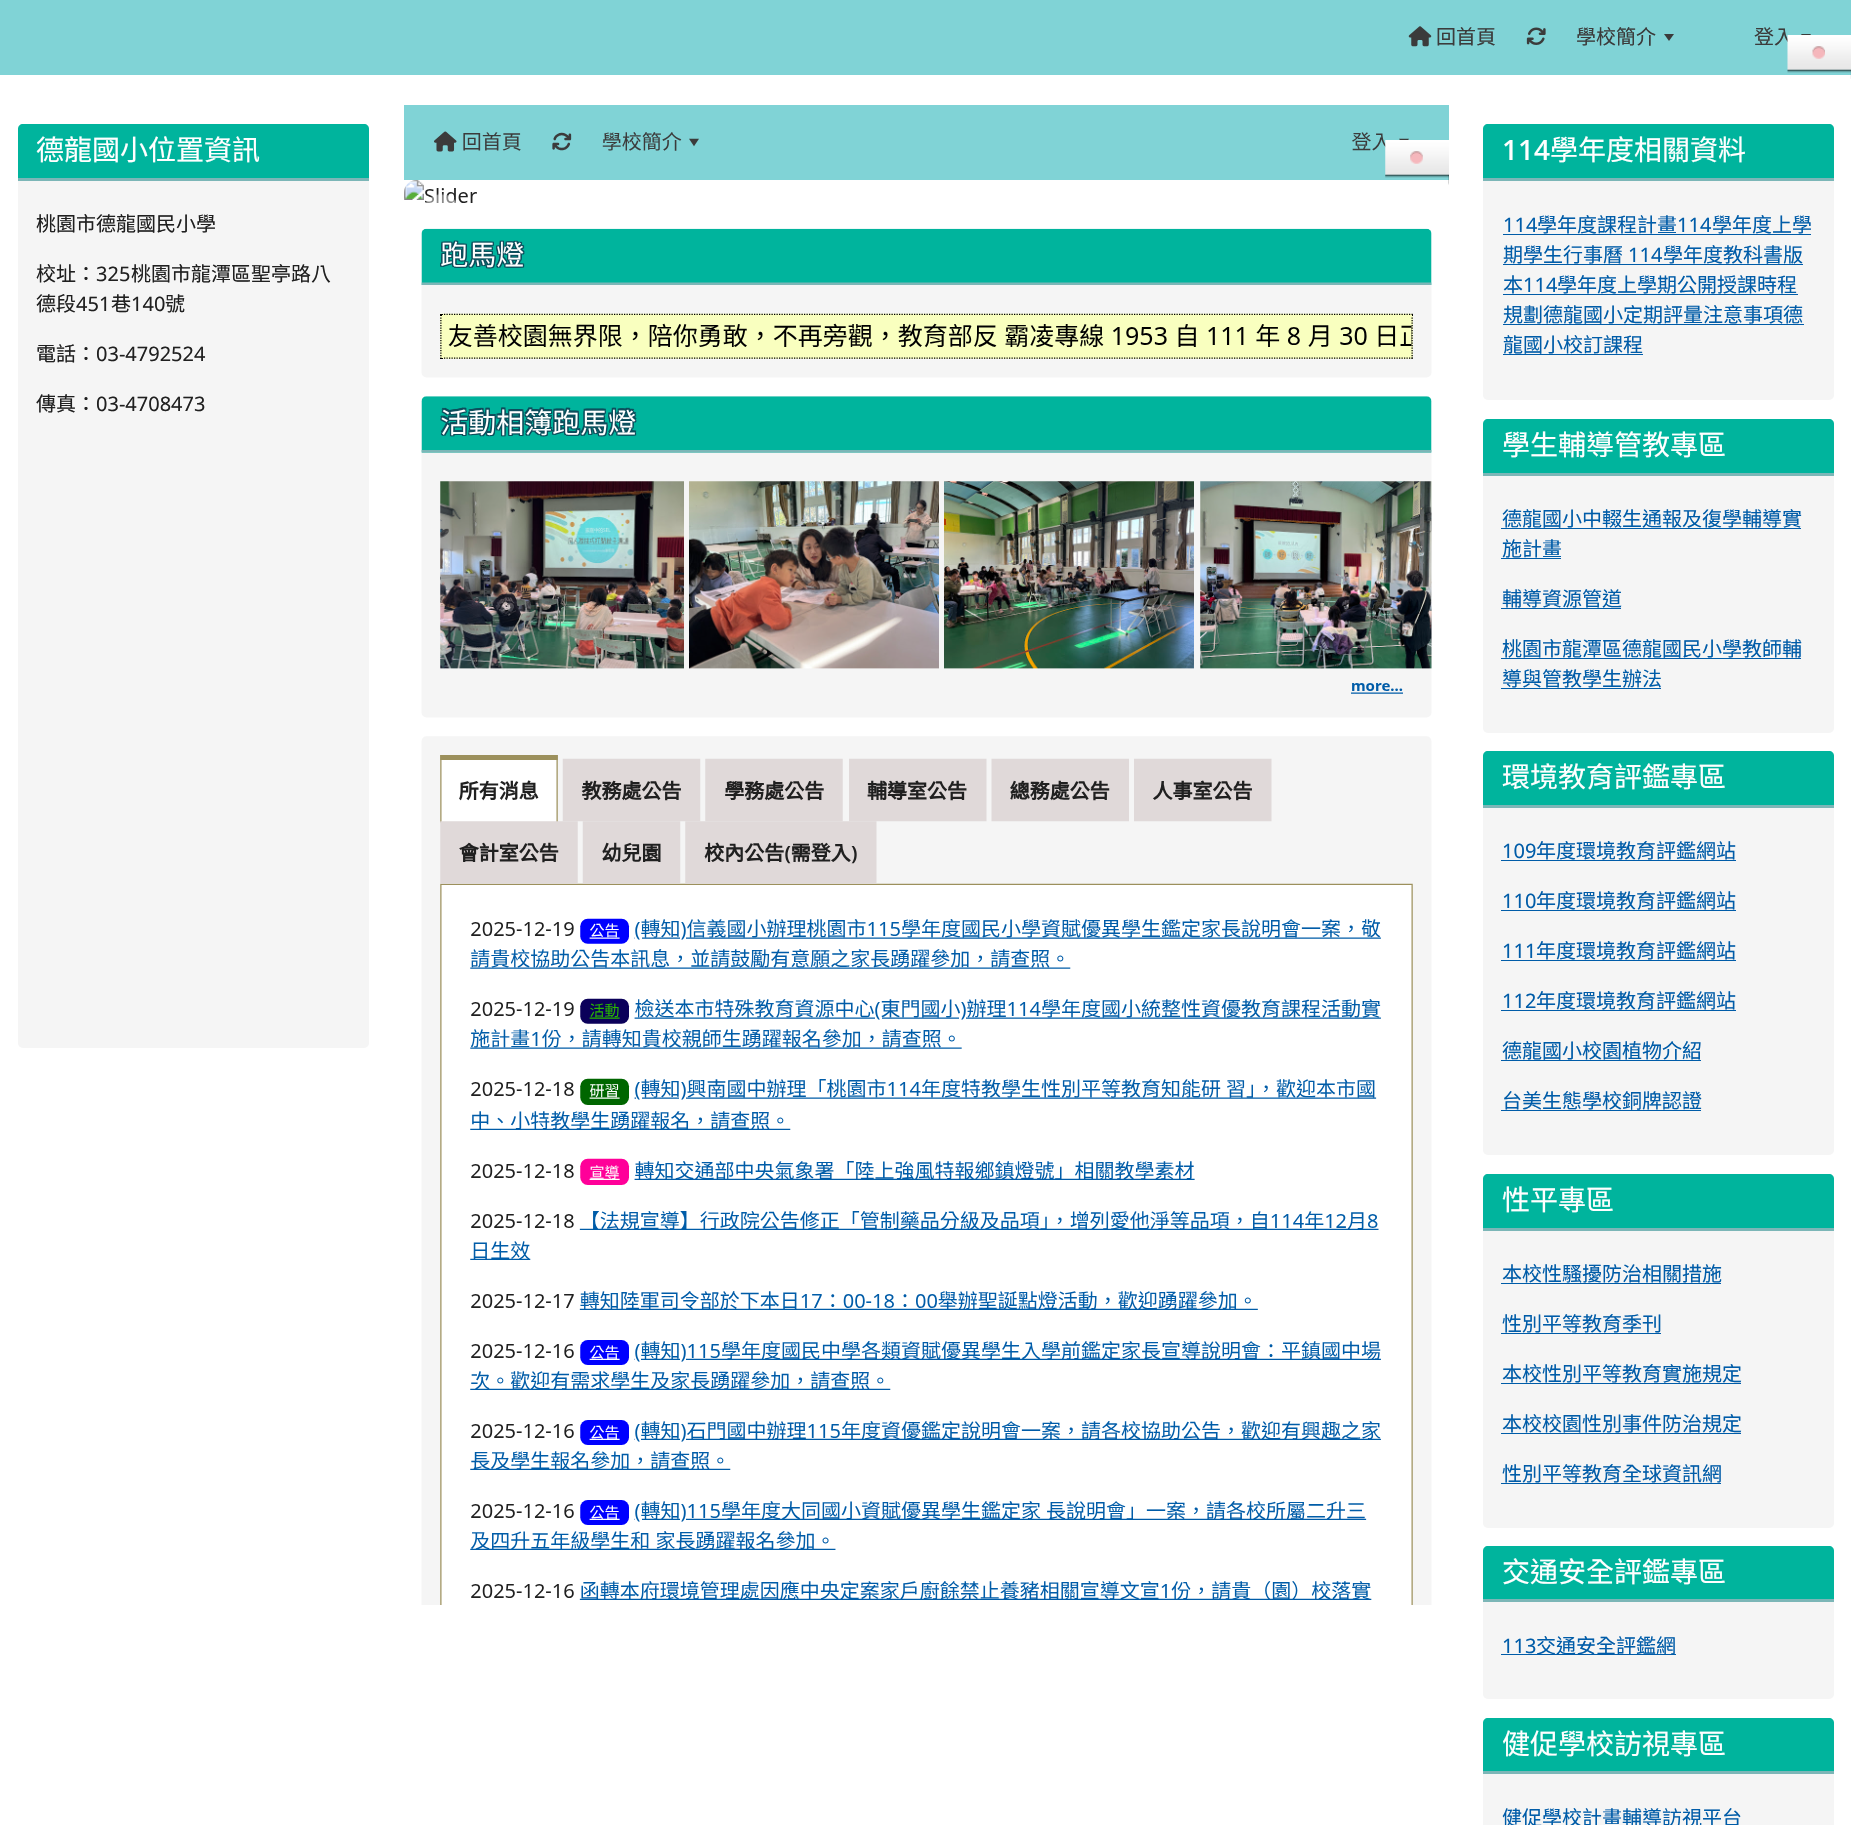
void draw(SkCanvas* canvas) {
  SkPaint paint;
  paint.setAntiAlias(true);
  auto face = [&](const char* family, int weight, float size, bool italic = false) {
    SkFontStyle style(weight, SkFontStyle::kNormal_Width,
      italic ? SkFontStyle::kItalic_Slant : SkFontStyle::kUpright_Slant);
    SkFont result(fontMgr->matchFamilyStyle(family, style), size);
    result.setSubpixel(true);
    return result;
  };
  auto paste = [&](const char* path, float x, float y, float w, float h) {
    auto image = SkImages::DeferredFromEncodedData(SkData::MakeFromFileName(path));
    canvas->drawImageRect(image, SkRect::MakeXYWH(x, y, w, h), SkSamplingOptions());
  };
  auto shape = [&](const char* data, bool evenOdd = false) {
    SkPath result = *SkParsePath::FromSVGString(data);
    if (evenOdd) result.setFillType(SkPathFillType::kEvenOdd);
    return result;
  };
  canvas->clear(0xffffffff);
  paint.setColor(0xff80d3d6);
  canvas->drawRect(SkRect::MakeXYWH(0, 0, 1851, 75), paint);
  paste("img/1.png", 1408, 26, 24, 21);
  paste("img/2.png", 1526, 27, 20, 18);
  paint.setColor(0xff3b3b3b);
  canvas->drawPath(shape("M1664 34H1674L1669 41Z"), paint);
  canvas->drawPath(shape("M1801 34H1811L1806 41Z"), paint);
  paint.setColor(0xfff5f5f5);
  canvas->drawRoundRect(SkRect::MakeXYWH(18, 124, 351, 924), 5, 5, paint);
  paint.setColor(0xff00b49d);
  canvas->drawPath(shape("M23 124H364C367 124 369 126 369 129V180H18V129C18 126 20 124 23 124Z"), paint);
  paint.setColor(0xff7cb6b7);
  canvas->drawRect(SkRect::MakeXYWH(18, 178, 351, 3), paint);
  paste("img/5.png", 404, 105, 1045, 1500);
  paint.setColor(0xfff5f5f5);
  canvas->drawRoundRect(SkRect::MakeXYWH(1483, 124, 351, 276), 5, 5, paint);
  paint.setColor(0xff00b49d);
  canvas->drawPath(shape("M1488 124H1829C1832 124 1834 126 1834 129V180H1483V129C1483 126 1485 124 1488 124Z"), paint);
  {
    const struct { float x, y, w, h; SkColor color; } items[] = {
      {1483, 178, 351, 3, 0xff7cb6b7},
      {1503, 234, 308, 1, 0xff005ca8},
      {1503, 264, 300, 1, 0xff005ca8},
      {1503, 294, 295, 1, 0xff005ca8},
      {1503, 324, 301, 1, 0xff005ca8},
      {1503, 354, 140, 1, 0xff005ca8},
    };
    for (auto [x, y, w, h, color] : items) {
      paint.setColor(color);
      canvas->drawRect(SkRect::MakeXYWH(x, y, w, h), paint);
    }
  }
  paint.setColor(0xfff5f5f5);
  canvas->drawRoundRect(SkRect::MakeXYWH(1483, 419, 351, 314), 5, 5, paint);
  paint.setColor(0xff00b49d);
  canvas->drawPath(shape("M1488 419H1829C1832 419 1834 421 1834 424V475H1483V424C1483 421 1485 419 1488 419Z"), paint);
  {
    const struct { float x, y, w, h; SkColor color; } items[] = {
      {1483, 473, 351, 3, 0xff7cb6b7},
      {1501, 528, 300, 1, 0xff005ca8},
      {1501, 558, 60, 1, 0xff005ca8},
      {1501, 608, 120, 1, 0xff005ca8},
      {1501, 658, 300, 1, 0xff005ca8},
      {1501, 688, 160, 1, 0xff005ca8},
    };
    for (auto [x, y, w, h, color] : items) {
      paint.setColor(color);
      canvas->drawRect(SkRect::MakeXYWH(x, y, w, h), paint);
    }
  }
  paint.setColor(0xfff5f5f5);
  canvas->drawRoundRect(SkRect::MakeXYWH(1483, 751, 351, 404), 5, 5, paint);
  paint.setColor(0xff00b49d);
  canvas->drawPath(shape("M1488 751H1829C1832 751 1834 753 1834 756V808H1483V756C1483 753 1485 751 1488 751Z"), paint);
  {
    const struct { float x, y, w, h; SkColor color; } items[] = {
      {1483, 805, 351, 3, 0xff7cb6b7},
      {1501, 860, 235, 1, 0xff005ca8},
      {1501, 910, 235, 1, 0xff005ca8},
      {1501, 960, 235, 1, 0xff005ca8},
      {1501, 1010, 235, 1, 0xff005ca8},
      {1501, 1060, 200, 1, 0xff005ca8},
      {1501, 1110, 200, 1, 0xff005ca8},
    };
    for (auto [x, y, w, h, color] : items) {
      paint.setColor(color);
      canvas->drawRect(SkRect::MakeXYWH(x, y, w, h), paint);
    }
  }
  paint.setColor(0xfff5f5f5);
  canvas->drawRoundRect(SkRect::MakeXYWH(1483, 1174, 351, 354), 5, 5, paint);
  paint.setColor(0xff00b49d);
  canvas->drawPath(shape("M1488 1174H1829C1832 1174 1834 1176 1834 1179V1230H1483V1179C1483 1176 1485 1174 1488 1174Z"), paint);
  {
    const struct { float x, y, w, h; SkColor color; } items[] = {
      {1483, 1228, 351, 3, 0xff7cb6b7},
      {1501, 1283, 220, 1, 0xff005ca8},
      {1501, 1333, 160, 1, 0xff005ca8},
      {1501, 1383, 240, 1, 0xff005ca8},
      {1501, 1433, 240, 1, 0xff005ca8},
      {1501, 1483, 220, 1, 0xff005ca8},
    };
    for (auto [x, y, w, h, color] : items) {
      paint.setColor(color);
      canvas->drawRect(SkRect::MakeXYWH(x, y, w, h), paint);
    }
  }
  paint.setColor(0xfff5f5f5);
  canvas->drawRoundRect(SkRect::MakeXYWH(1483, 1546, 351, 153), 5, 5, paint);
  paint.setColor(0xff00b49d);
  canvas->drawPath(shape("M1488 1546H1829C1832 1546 1834 1548 1834 1551V1601H1483V1551C1483 1548 1485 1546 1488 1546Z"), paint);
  paint.setColor(0xff7cb6b7);
  canvas->drawRect(SkRect::MakeXYWH(1483, 1599, 351, 3), paint);
  paint.setColor(0xff005ca8);
  canvas->drawRect(SkRect::MakeXYWH(1501, 1654, 175, 1), paint);
  paint.setColor(0xfff5f5f5);
  canvas->drawRoundRect(SkRect::MakeXYWH(1483, 1718, 351, 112), 5, 5, paint);
  paint.setColor(0xff00b49d);
  canvas->drawPath(shape("M1488 1718H1829C1832 1718 1834 1720 1834 1723V1774H1483V1723C1483 1720 1485 1718 1488 1718Z"), paint);
  paint.setColor(0xff7cb6b7);
  canvas->drawRect(SkRect::MakeXYWH(1483, 1771, 351, 3), paint);
  auto f0 = face("Noto Sans CJK TC", 400, 20);
  paint.setColor(0xff3b3b3b);
  {
    const struct { const char* s; float x, y; } items[] = {
      {"回首頁", 1436, 44},
      {"學校簡介", 1576, 44},
      {"登入", 1754, 44},
    };
    for (auto [s, x, y] : items) {
      canvas->drawString(s, x, y, f0, paint);
    }
  }
  paste("img/3.png", 1787, 35, 64, 44);
  paste("img/4.png", 1812, 46, 13, 13);
  auto f1 = face("Noto Sans CJK TC", 400, 28);
  paint.setColor(0xffffffff);
  canvas->drawString("德龍國小位置資訊", 36, 160, f1, paint);
  paint.setColor(0xff202020);
  canvas->drawString("桃園市德龍國民小學", 36, 231, f0, paint);
  canvas->drawString("校址：", 36, 281, f0, paint);
  auto f2 = face("Noto Sans", 400, 20);
  canvas->drawString("325", 96, 281, f2, paint);
  canvas->drawString("桃園市龍潭區聖亭路八", 131, 281, f0, paint);
  canvas->drawString("德段", 36, 311, f0, paint);
  canvas->drawString("451", 76, 311, f2, paint);
  canvas->drawString("巷", 111, 311, f0, paint);
  canvas->drawString("140", 131, 311, f2, paint);
  canvas->drawString("號", 165, 311, f0, paint);
  canvas->drawString("電話：", 36, 361, f0, paint);
  canvas->drawString("03-4792524", 96, 361, f2, paint);
  canvas->drawString("傳真：", 36, 411, f0, paint);
  canvas->drawString("03-4708473", 96, 411, f2, paint);
  auto f3 = face("Noto Sans", 500, 28);
  paint.setColor(0xffffffff);
  canvas->drawString("114", 1502, 160, f3, paint);
  canvas->drawString("學年度相關資料", 1550, 160, f1, paint);
  paint.setColor(0xff005ca8);
  canvas->drawString("114", 1503, 232, f2, paint);
  canvas->drawString("學年度課程計畫", 1537, 232, f0, paint);
  canvas->drawString("114", 1677, 232, f2, paint);
  canvas->drawString("學年度上學", 1712, 232, f0, paint);
  canvas->drawString("期學生行事曆", 1503, 262, f0, paint);
  canvas->drawString("114", 1628, 262, f2, paint);
  canvas->drawString("學年度教科書版", 1663, 262, f0, paint);
  canvas->drawString("本", 1503, 292, f0, paint);
  canvas->drawString("114", 1523, 292, f2, paint);
  {
    const struct { const char* s; float x, y; } items[] = {
      {"學年度上學期公開授課時程", 1557, 292},
      {"規劃德龍國小定期評量注意事項德", 1503, 322},
      {"龍國小校訂課程", 1503, 352},
    };
    for (auto [s, x, y] : items) {
      canvas->drawString(s, x, y, f0, paint);
    }
  }
  paint.setColor(0xffffffff);
  canvas->drawString("學生輔導管教專區", 1502, 455, f1, paint);
  paint.setColor(0xff005ca8);
  {
    const struct { const char* s; float x, y; } items[] = {
      {"德龍國小中輟生通報及復學輔導實", 1502, 526},
      {"施計畫", 1502, 556},
      {"輔導資源管道", 1502, 606},
      {"桃園市龍潭區德龍國民小學教師輔", 1502, 656},
      {"導與管教學生辦法", 1502, 686},
    };
    for (auto [s, x, y] : items) {
      canvas->drawString(s, x, y, f0, paint);
    }
  }
  paint.setColor(0xffffffff);
  canvas->drawString("環境教育評鑑專區", 1502, 787, f1, paint);
  paint.setColor(0xff005ca8);
  canvas->drawString("109", 1502, 858, f2, paint);
  canvas->drawString("年度環境教育評鑑網站", 1536, 858, f0, paint);
  canvas->drawString("110", 1502, 908, f2, paint);
  canvas->drawString("年度環境教育評鑑網站", 1536, 908, f0, paint);
  canvas->drawString("111", 1502, 958, f2, paint);
  canvas->drawString("年度環境教育評鑑網站", 1536, 958, f0, paint);
  canvas->drawString("112", 1502, 1008, f2, paint);
  {
    const struct { const char* s; float x, y; } items[] = {
      {"年度環境教育評鑑網站", 1536, 1008},
      {"德龍國小校園植物介紹", 1502, 1058},
      {"台美生態學校銅牌認證", 1502, 1108},
    };
    for (auto [s, x, y] : items) {
      canvas->drawString(s, x, y, f0, paint);
    }
  }
  paint.setColor(0xffffffff);
  canvas->drawString("性平專區", 1502, 1210, f1, paint);
  paint.setColor(0xff005ca8);
  {
    const struct { const char* s; float x, y; } items[] = {
      {"本校性騷擾防治相關措施", 1502, 1281},
      {"性別平等教育季刊", 1502, 1331},
      {"本校性別平等教育實施規定", 1502, 1381},
      {"本校校園性別事件防治規定", 1502, 1431},
      {"性別平等教育全球資訊網", 1502, 1481},
    };
    for (auto [s, x, y] : items) {
      canvas->drawString(s, x, y, f0, paint);
    }
  }
  paint.setColor(0xffffffff);
  canvas->drawString("交通安全評鑑專區", 1502, 1582, f1, paint);
  paint.setColor(0xff005ca8);
  canvas->drawString("113", 1502, 1653, f2, paint);
  canvas->drawString("交通安全評鑑網", 1536, 1653, f0, paint);
  paint.setColor(0xffffffff);
  canvas->drawString("健促學校訪視專區", 1502, 1754, f1, paint);
  paint.setColor(0xff005ca8);
  canvas->drawString("健促學校計畫輔導訪視平台", 1502, 1825, f0, paint);
}
